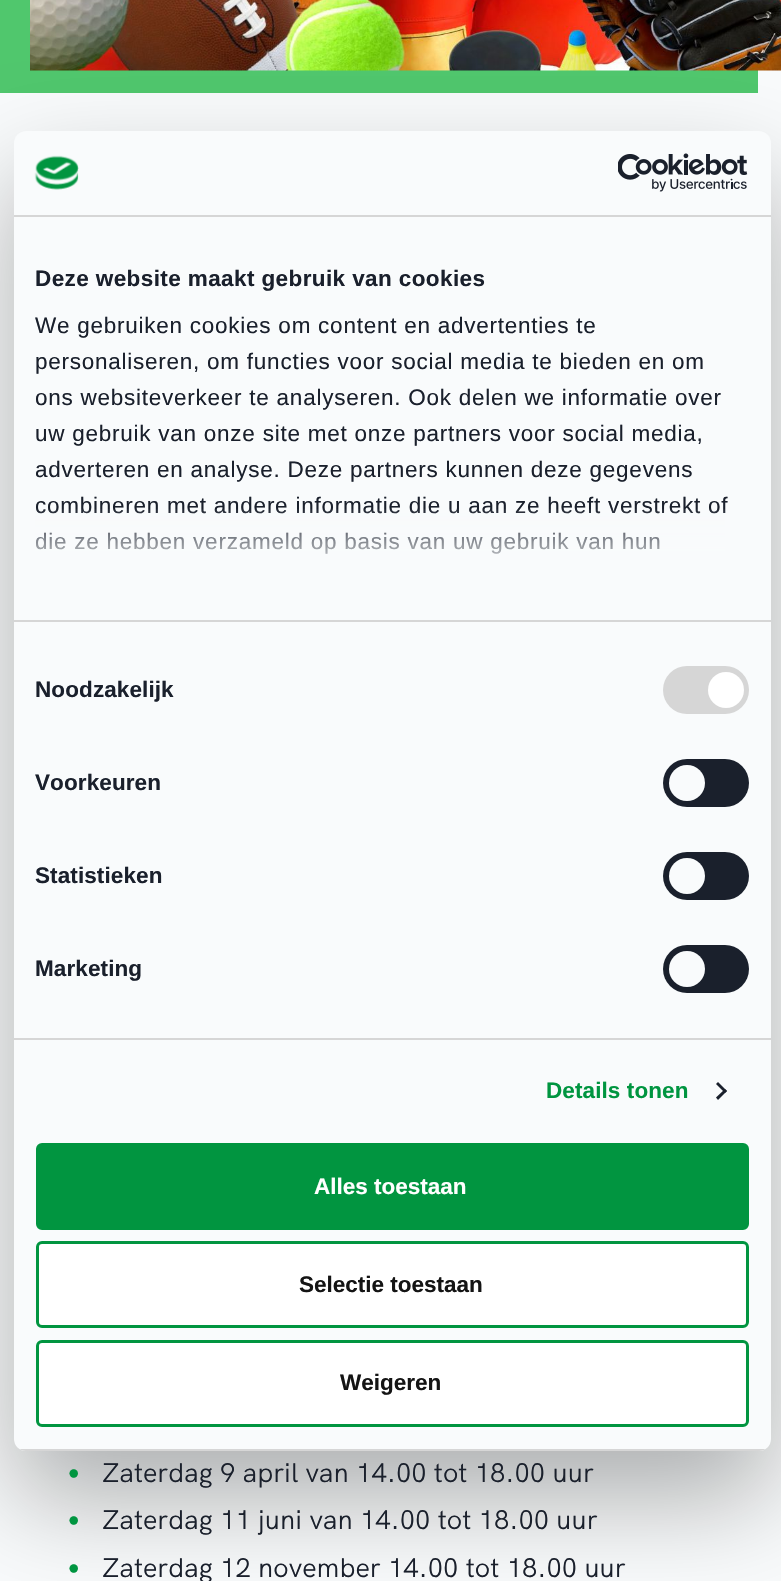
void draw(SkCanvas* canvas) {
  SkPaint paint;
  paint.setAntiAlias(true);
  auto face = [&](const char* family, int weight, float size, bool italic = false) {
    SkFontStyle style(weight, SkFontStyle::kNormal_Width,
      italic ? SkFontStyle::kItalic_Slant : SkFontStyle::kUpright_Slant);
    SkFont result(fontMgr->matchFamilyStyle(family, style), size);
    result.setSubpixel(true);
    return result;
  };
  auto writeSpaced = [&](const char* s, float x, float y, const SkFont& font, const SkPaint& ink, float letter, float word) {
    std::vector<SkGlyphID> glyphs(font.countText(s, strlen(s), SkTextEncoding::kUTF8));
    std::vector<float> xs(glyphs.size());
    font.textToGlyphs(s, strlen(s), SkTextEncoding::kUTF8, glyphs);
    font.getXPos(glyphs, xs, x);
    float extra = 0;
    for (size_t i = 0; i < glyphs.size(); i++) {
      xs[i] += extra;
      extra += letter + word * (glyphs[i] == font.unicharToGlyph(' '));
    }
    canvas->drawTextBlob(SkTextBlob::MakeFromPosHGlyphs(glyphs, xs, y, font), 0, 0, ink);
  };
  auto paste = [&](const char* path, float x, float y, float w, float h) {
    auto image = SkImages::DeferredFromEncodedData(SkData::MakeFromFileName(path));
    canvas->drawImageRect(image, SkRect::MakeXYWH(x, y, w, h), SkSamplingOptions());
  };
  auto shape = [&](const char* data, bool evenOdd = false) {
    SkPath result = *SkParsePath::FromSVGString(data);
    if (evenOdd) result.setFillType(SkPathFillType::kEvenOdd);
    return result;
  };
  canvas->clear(0xfff9fbfc);
  paint.setColor(0xff50c76d);
  canvas->drawRect(SkRect::MakeXYWH(0, 0, 758, 93), paint);
  paste("img/3.png", 30, 0, 751, 71);
  paint.setColor(0x4d000000);
  paint.setMaskFilter(SkMaskFilter::MakeBlur(kNormal_SkBlurStyle, 51));
  canvas->drawRoundRect(SkRect::MakeXYWH(14, 179, 757, 1320), 12, 12, paint);
  paint.setMaskFilter(nullptr);
  paint.setColor(0xfff9fbfc);
  canvas->drawRoundRect(SkRect::MakeXYWH(14, 131, 757, 1320), 12, 12, paint);
  paint.setColor(0xffd6d6d6);
  canvas->drawRect(SkRect::MakeXYWH(14, 215, 757, 2), paint);
  paste("img/1.png", 34, 155, 45, 35);
  paste("img/2.png", 618, 153, 130, 39);
  canvas->drawRect(SkRect::MakeXYWH(14, 620, 757, 2), paint);
  canvas->drawRect(SkRect::MakeXYWH(14, 1038, 757, 2), paint);
  canvas->drawRoundRect(SkRect::MakeXYWH(663, 666, 86, 48), 24, 24, paint);
  paint.setColor(0xffffffff);
  canvas->drawCircle(726, 690, 18, paint);
  paint.setColor(0xff1a202c);
  canvas->drawRoundRect(SkRect::MakeXYWH(663, 759, 86, 48), 24, 24, paint);
  paint.setColor(0xfff9fbfc);
  canvas->drawCircle(687, 783, 18, paint);
  paint.setColor(0xff1a202c);
  canvas->drawRoundRect(SkRect::MakeXYWH(663, 852, 86, 48), 24, 24, paint);
  paint.setColor(0xfff9fbfc);
  canvas->drawCircle(687, 876, 18, paint);
  paint.setColor(0xff1a202c);
  canvas->drawRoundRect(SkRect::MakeXYWH(663, 945, 86, 48), 24, 24, paint);
  paint.setColor(0xfff9fbfc);
  canvas->drawCircle(687, 969, 18, paint);
  paint.setColor(0xff1a202c);
  canvas->drawPath(shape("M718 1082L727 1091L725 1093L716 1084Z"), paint);
  canvas->drawPath(shape("M725 1089L727 1091L718 1100L716 1097.5Z"), paint);
  canvas->save();
  canvas->clipPath(shape("M26 131H759C765.5 131 771 136.5 771 143V1439C771 1445.5 765.5 1451 759 1451H26C19.5 1451 14 1445.5 14 1439V143C14 136.5 19.5 131 26 131Z"), true);
  paint.setColor(0xffd6d6d6);
  canvas->drawRect(SkRect::MakeXYWH(14, 1449, 757, 2), paint);
  canvas->restore();
  paint.setColor(0xff019540);
  canvas->drawRoundRect(SkRect::MakeXYWH(37.5f, 1144.5f, 710, 84), 4.5f, 4.5f, paint);
  paint.setStroke(true);
  paint.setStrokeWidth(3);
  canvas->drawRoundRect(SkRect::MakeXYWH(37.5f, 1144.5f, 710, 84), 4.5f, 4.5f, paint);
  paint.setStroke(false);
  paint.setColor(0xffffffff);
  canvas->drawRoundRect(SkRect::MakeXYWH(37.5f, 1242.5f, 710, 84), 4.5f, 4.5f, paint);
  paint.setStroke(true);
  paint.setColor(0xff019540);
  canvas->drawRoundRect(SkRect::MakeXYWH(37.5f, 1242.5f, 710, 84), 4.5f, 4.5f, paint);
  paint.setStroke(false);
  paint.setColor(0xffffffff);
  canvas->drawRoundRect(SkRect::MakeXYWH(37.5f, 1341.5f, 710, 84), 4.5f, 4.5f, paint);
  paint.setStroke(true);
  paint.setColor(0xff019540);
  canvas->drawRoundRect(SkRect::MakeXYWH(37.5f, 1341.5f, 710, 84), 4.5f, 4.5f, paint);
  auto f0 = face("Liberation Sans", 700, 22.5f);
  paint.setStroke(false);
  paint.setColor(0xff1a202c);
  writeSpaced("Deze website maakt gebruik van cookies", 35, 286, f0, paint, 0.4f, 0);
  auto f1 = face("Liberation Sans", 400, 22.5f);
  {
    const struct { const char* s; float x, y; } items[] = {
      {"We gebruiken cookies om content en advertenties te", 35, 333},
      {"personaliseren, om functies voor social media te bieden en om", 35, 369},
      {"ons websiteverkeer te analyseren. Ook delen we informatie over", 35, 405},
      {"uw gebruik van onze site met onze partners voor social media,", 35, 441},
      {"adverteren en analyse. Deze partners kunnen deze gegevens", 35, 477},
      {"combineren met andere informatie die u aan ze heeft verstrekt of", 35, 513},
      {"die ze hebben verzameld op basis van uw gebruik van hun", 35, 549},
    };
    for (auto [s, x, y] : items) {
      writeSpaced(s, x, y, f1, paint, 0.75f, 0);
    }
  }
  {
    const SkColor colors[] = {0xfff9fbfc, 0xccf9fbfc, 0x00f9fbfc};
    const float stops[] = {0, 0.5f, 1};
    const SkPoint ends[] = {{382, 620}, {382, 507}};
    paint.setShader(SkGradientShader::MakeLinear(ends, colors, stops, 3, SkTileMode::kClamp));
    paint.setAlpha(255);
  }
  canvas->drawRect(SkRect::MakeXYWH(35, 509, 690, 45), paint);
  paint.setShader(nullptr);
  paint.setColor(0xff1a202c);
  {
    const struct { const char* s; float x, y; } items[] = {
      {"Noodzakelijk", 35, 697},
      {"Voorkeuren", 35, 790},
      {"Statistieken", 35, 883},
      {"Marketing", 35, 976},
    };
    for (auto [s, x, y] : items) {
      writeSpaced(s, x, y, f0, paint, 0.1f, 0);
    }
  }
  paint.setColor(0xff009540);
  writeSpaced("Details tonen", 546, 1098, f0, paint, 0.1f, 0);
  paint.setColor(0xffffffff);
  canvas->drawString("Alles toestaan", 314, 1194, f0, paint);
  paint.setColor(0xff141414);
  canvas->drawString("Selectie toestaan", 299, 1292, f0, paint);
  canvas->drawString("Weigeren", 340, 1390, f0, paint);
  auto f2 = face("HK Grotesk", 400, 36);
  paint.setColor(0xff009540);
  canvas->drawString("•", 66, 1482, f2, paint);
  auto f3 = face("HK Grotesk", 400, 27);
  paint.setColor(0xff1a202c);
  canvas->drawString("Zaterdag 9 april van 14.00 tot 18.00 uur", 102, 1482, f3, paint);
  paint.setColor(0xff009540);
  canvas->drawString("•", 66, 1529, f2, paint);
  paint.setColor(0xff1a202c);
  canvas->drawString("Zaterdag 11 juni van 14.00 tot 18.00 uur", 102, 1529, f3, paint);
  paint.setColor(0xff009540);
  canvas->drawString("•", 66, 1577, f2, paint);
  paint.setColor(0xff1a202c);
  canvas->drawString("Zaterdag 12 november 14.00 tot 18.00 uur", 102, 1577, f3, paint);
}
